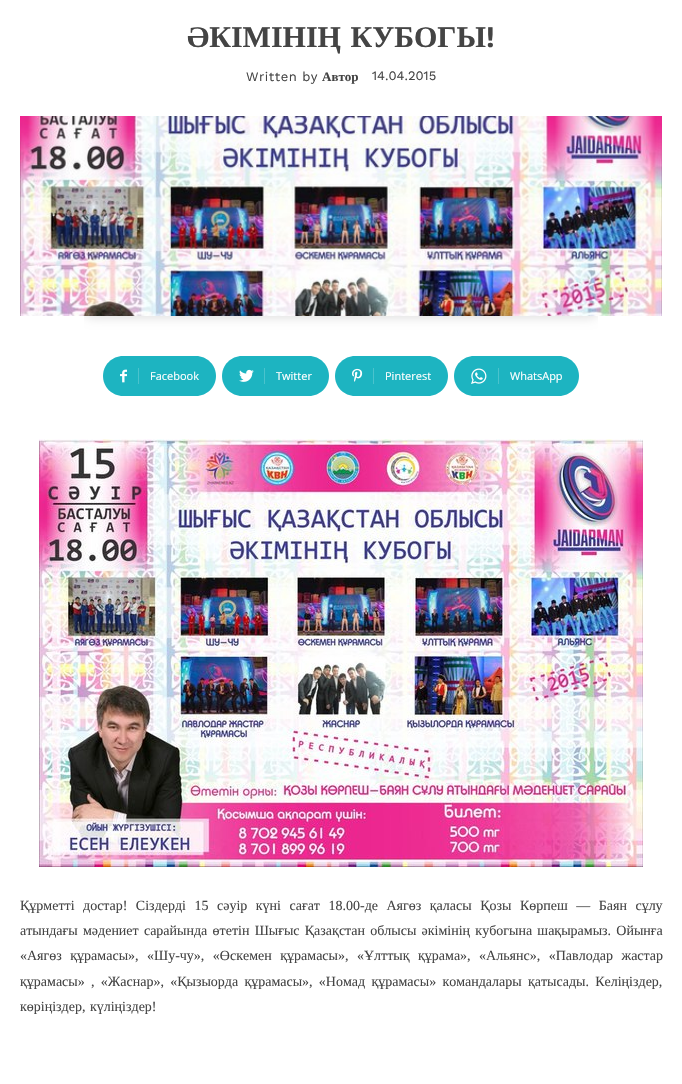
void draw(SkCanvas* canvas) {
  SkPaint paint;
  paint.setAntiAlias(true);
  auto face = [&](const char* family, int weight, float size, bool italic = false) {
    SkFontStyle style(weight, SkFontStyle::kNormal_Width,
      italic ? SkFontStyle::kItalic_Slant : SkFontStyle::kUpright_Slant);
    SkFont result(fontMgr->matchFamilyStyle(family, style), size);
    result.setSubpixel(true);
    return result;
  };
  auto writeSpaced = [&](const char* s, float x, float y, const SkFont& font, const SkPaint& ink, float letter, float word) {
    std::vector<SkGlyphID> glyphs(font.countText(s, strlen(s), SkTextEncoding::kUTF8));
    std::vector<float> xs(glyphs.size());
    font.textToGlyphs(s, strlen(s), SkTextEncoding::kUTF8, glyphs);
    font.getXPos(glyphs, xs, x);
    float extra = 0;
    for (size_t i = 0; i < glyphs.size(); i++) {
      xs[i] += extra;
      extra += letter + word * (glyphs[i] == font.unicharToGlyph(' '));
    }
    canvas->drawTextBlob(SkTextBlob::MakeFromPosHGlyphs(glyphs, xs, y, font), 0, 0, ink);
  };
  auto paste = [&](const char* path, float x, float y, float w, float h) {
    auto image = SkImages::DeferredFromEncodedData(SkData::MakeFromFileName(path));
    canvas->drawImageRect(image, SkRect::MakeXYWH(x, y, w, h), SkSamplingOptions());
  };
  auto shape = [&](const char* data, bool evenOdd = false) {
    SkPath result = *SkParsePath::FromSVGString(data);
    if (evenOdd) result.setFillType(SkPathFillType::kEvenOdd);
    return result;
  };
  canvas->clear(0xffffffff);
  paste("img/1.png", 20, 116, 642, 200);
  canvas->save();
  canvas->clipRect(SkRect::MakeXYWH(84, 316, 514, 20));
  paint.setColor(0x1a000000);
  paint.setMaskFilter(SkMaskFilter::MakeBlur(kNormal_SkBlurStyle, 5));
  canvas->drawRoundRect(SkRect::MakeXYWH(79, 286, 524, 33), 16.5f, 16.5f, paint);
  paint.setMaskFilter(nullptr);
  canvas->restore();
  paint.setColor(0xff1db4c1);
  canvas->drawPath(shape("M138 356H196C207 356 216 365 216 376C216 387 207 396 196 396H138Z"), paint);
  canvas->drawPath(shape("M123 356H144V396H123C112 396 103 387 103 376C103 365 112 356 123 356Z"), paint);
  paste("img/2.png", 120, 369, 7, 14);
  paint.setColor(0xff4ac3cd);
  canvas->drawRect(SkRect::MakeXYWH(138, 368, 1, 16), paint);
  paint.setColor(0xff1db4c1);
  canvas->drawPath(shape("M264 356H309C320 356 329 365 329 376C329 387 320 396 309 396H264Z"), paint);
  canvas->drawPath(shape("M242 356H270V396H242C231 396 222 387 222 376C222 365 231 356 242 356Z"), paint);
  paste("img/3.png", 239, 369, 15, 13);
  paint.setColor(0xff4ac3cd);
  canvas->drawRect(SkRect::MakeXYWH(264, 368, 1, 16), paint);
  paint.setColor(0xff1db4c1);
  canvas->drawPath(shape("M373 356H428C439 356 448 365 448 376C448 387 439 396 428 396H373Z"), paint);
  canvas->drawPath(shape("M355 356H379V396H355C344 396 335 387 335 376C335 365 344 356 355 356Z"), paint);
  paste("img/4.png", 352, 368, 11, 14);
  paint.setColor(0xff4ac3cd);
  canvas->drawRect(SkRect::MakeXYWH(373, 368, 1, 16), paint);
  paint.setColor(0xff1db4c1);
  canvas->drawPath(shape("M498 356H559C570 356 579 365 579 376C579 387 570 396 559 396H498Z"), paint);
  canvas->drawPath(shape("M474 356H504V396H474C463 396 454 387 454 376C454 365 463 356 474 356Z"), paint);
  paste("img/5.png", 471, 368, 16, 16);
  paint.setColor(0xff4ac3cd);
  canvas->drawRect(SkRect::MakeXYWH(498, 368, 1, 16), paint);
  paste("img/6.png", 39, 439, 604, 428);
  auto f0 = face("Liberation Serif", 700, 30);
  paint.setColor(0xff444444);
  writeSpaced("ӘКІМІНІҢ КУБОГЫ", 187, 47, f0, paint, 0, 2);
  auto f1 = face("Work Sans", 600, 30);
  canvas->drawString("!", 486, 47, f1, paint);
  auto f2 = face("Work Sans", 400, 13);
  writeSpaced("Written by", 246, 81, f2, paint, 0.5f, 0);
  auto f3 = face("Liberation Serif", 700, 13);
  canvas->drawString("Автор", 322, 81, f3, paint);
  canvas->drawString("14.04.2015", 372, 80, f2, paint);
  auto f4 = face("Open Sans", 400, 11);
  paint.setColor(0xffffffff);
  {
    const struct { const char* s; float x, y; } items[] = {
      {"Facebook", 150, 380},
      {"Twitter", 276, 380},
      {"Pinterest", 385, 380},
      {"WhatsApp", 510, 380},
    };
    for (auto [s, x, y] : items) {
      canvas->drawString(s, x, y, f4, paint);
    }
  }
  auto f5 = face("Liberation Serif", 400, 14);
  paint.setColor(0xff444444);
  writeSpaced("Құрметті достар! Сіздерді 15 сәуір күні сағат 18.00-де Аягөз қаласы Қозы Көрпеш — Баян сұлу", 20, 910, f5, paint, 0, 5);
  writeSpaced("атындағы мәдениет сарайында өтетін Шығыс Қазақстан облысы әкімінің кубогына шақырамыз. Ойынға", 20, 935, f5, paint, 0, 1.75f);
  writeSpaced("«Аягөз құрамасы», «Шу-чу», «Өскемен құрамасы», «Ұлттық құрама», «Альянс», «Павлодар жастар", 20, 960, f5, paint, 0, 5);
  writeSpaced("құрамасы» , «Жаснар», «Қызыорда құрамасы», «Номад құрамасы» командалары қатысады. Келіңіздер,", 20, 986, f5, paint, 0, 2.75f);
  writeSpaced("көріңіздер, күліңіздер!", 20, 1011, f5, paint, 0, 1);
}
